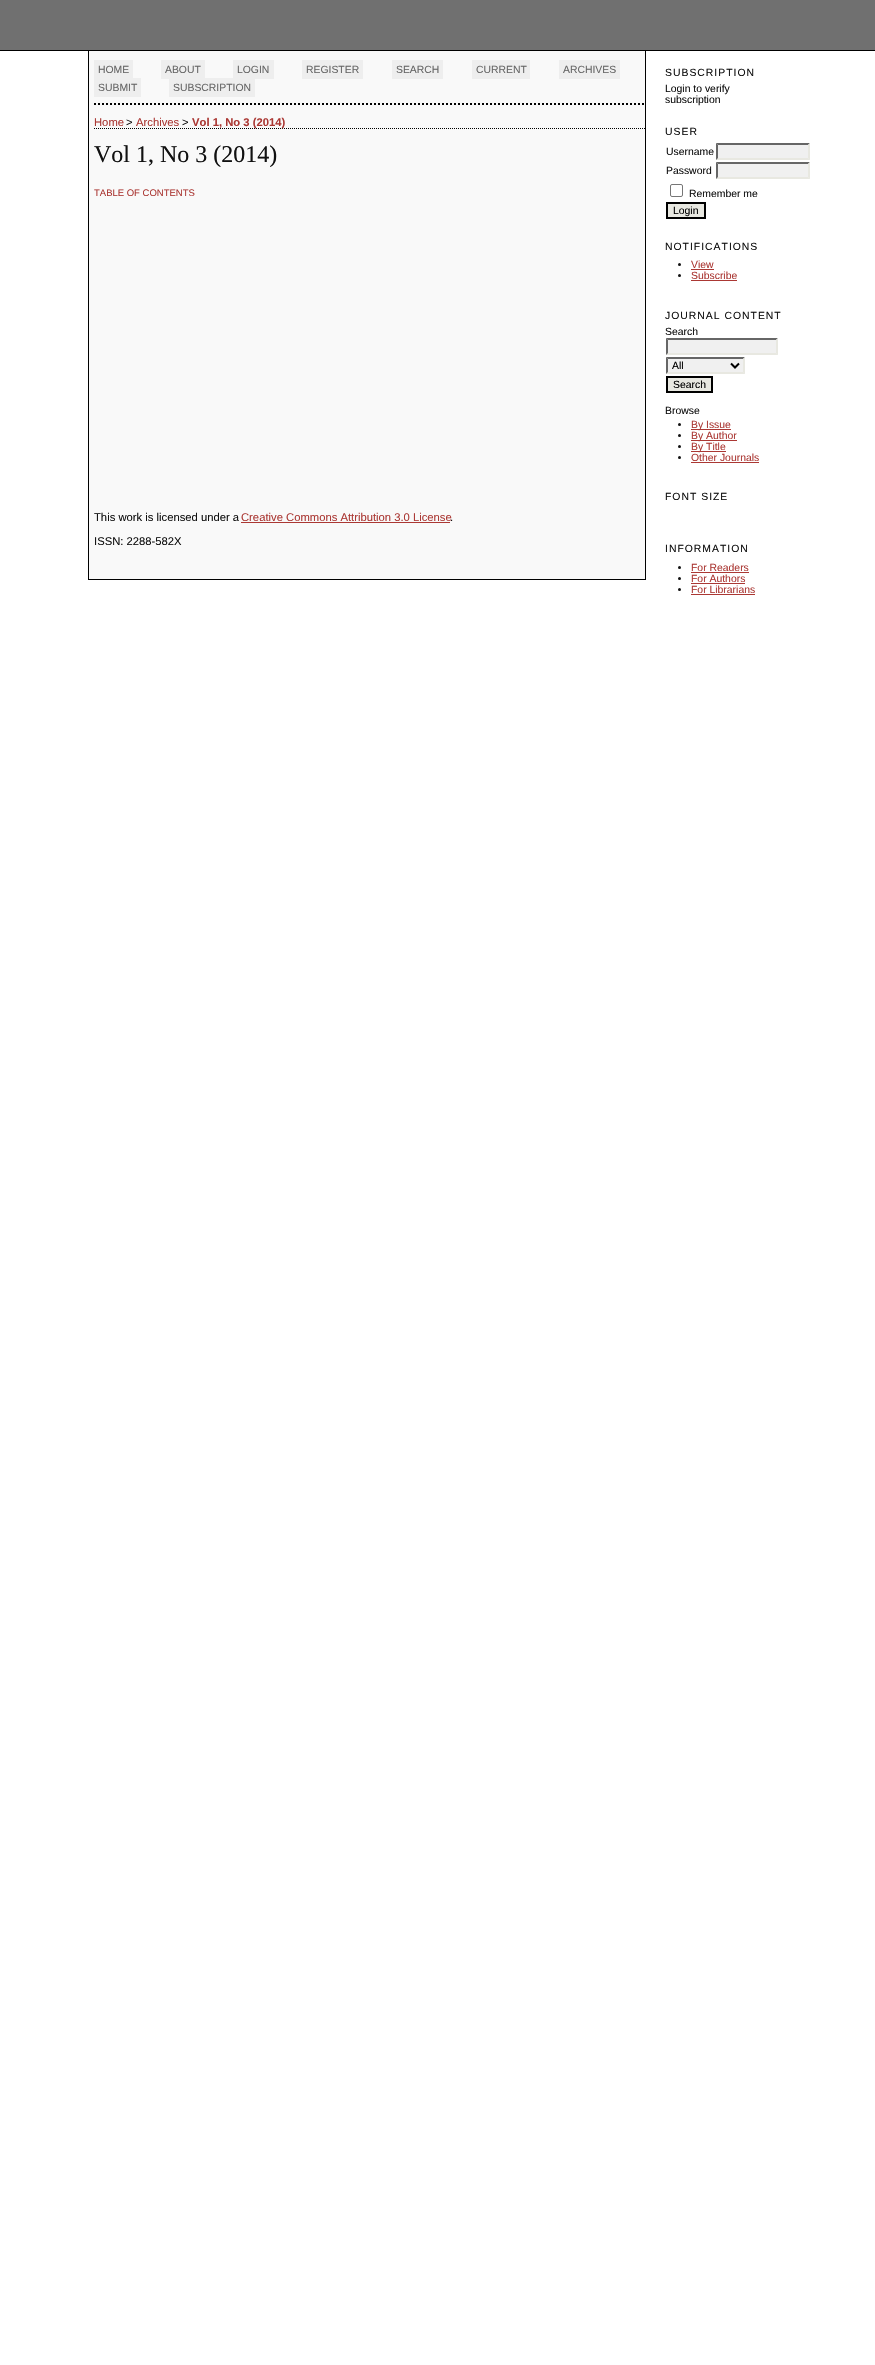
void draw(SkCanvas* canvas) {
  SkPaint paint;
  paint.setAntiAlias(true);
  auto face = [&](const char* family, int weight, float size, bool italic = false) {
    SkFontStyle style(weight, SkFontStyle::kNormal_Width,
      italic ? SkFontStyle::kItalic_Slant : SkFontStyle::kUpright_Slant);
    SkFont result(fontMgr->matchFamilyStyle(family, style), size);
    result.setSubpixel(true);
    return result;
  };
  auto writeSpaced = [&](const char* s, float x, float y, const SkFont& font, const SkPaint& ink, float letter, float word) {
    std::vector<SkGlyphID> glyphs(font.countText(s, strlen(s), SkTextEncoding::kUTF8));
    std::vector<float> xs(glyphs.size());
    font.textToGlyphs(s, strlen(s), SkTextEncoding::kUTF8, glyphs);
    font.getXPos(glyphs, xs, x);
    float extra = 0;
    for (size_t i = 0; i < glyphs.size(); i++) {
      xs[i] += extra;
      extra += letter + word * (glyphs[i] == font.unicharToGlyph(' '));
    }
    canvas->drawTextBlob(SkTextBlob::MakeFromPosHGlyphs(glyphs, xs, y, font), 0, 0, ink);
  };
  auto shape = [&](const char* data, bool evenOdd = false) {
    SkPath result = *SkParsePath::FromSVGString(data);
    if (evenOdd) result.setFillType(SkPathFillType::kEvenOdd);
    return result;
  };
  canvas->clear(0xffffffff);
  {
    const struct { float x, y, w, h; SkColor color; } items[] = {
      {0, 0, 875, 50, 0xff707070},
      {0, 50, 875, 1, 0xff000000},
      {89, 51, 556, 528, 0xfff9f9f9},
      {645, 51, 1, 529, 0xff000000},
      {88, 579, 558, 1, 0xff000000},
      {88, 51, 1, 529, 0xff000000},
    };
    for (auto [x, y, w, h, color] : items) {
      paint.setColor(color);
      canvas->drawRect(SkRect::MakeXYWH(x, y, w, h), paint);
    }
  }
  paint.setStroke(true);
  paint.setStrokeWidth(2);
  paint.setPathEffect(SkDashPathEffect::Make({{2, 2}}, 0));
  canvas->drawPath(shape("M94 104H645"), paint);
  paint.setPathEffect(nullptr);
  paint.setStroke(false);
  {
    const struct { float x, y, w, h; SkColor color; } items[] = {
      {94, 60, 39, 18, 0xffeeeeee},
      {161, 60, 44, 19, 0xffeeeeee},
      {233, 60, 41, 19, 0xffeeeeee},
      {302, 60, 61, 19, 0xffeeeeee},
      {392, 60, 51, 19, 0xffeeeeee},
      {472, 60, 58, 19, 0xffeeeeee},
      {559, 60, 61, 19, 0xffeeeeee},
      {94, 78, 47, 19, 0xffeeeeee},
      {169, 78, 86, 19, 0xffeeeeee},
    };
    for (auto [x, y, w, h, color] : items) {
      paint.setColor(color);
      canvas->drawRect(SkRect::MakeXYWH(x, y, w, h), paint);
    }
  }
  paint.setStroke(true);
  paint.setStrokeWidth(1);
  paint.setColor(0xff000000);
  paint.setPathEffect(SkDashPathEffect::Make({{1, 1}}, 0));
  canvas->drawPath(shape("M94 128.5H645"), paint);
  paint.setPathEffect(nullptr);
  paint.setStroke(false);
  paint.setColor(0xffab3834);
  canvas->drawRect(SkRect::MakeXYWH(241, 522, 209, 1), paint);
  paint.setColor(0xfff0f0f0);
  canvas->drawRect(SkRect::MakeXYWH(716, 143, 94, 17), paint);
  paint.setColor(0xff666666);
  canvas->drawPath(shape("M716 143H810L808 145H718Z"), paint);
  paint.setColor(0xffe8e8e1);
  canvas->drawPath(shape("M810 143V160L808 158V145Z"), paint);
  canvas->drawPath(shape("M810 160H716L718 158H808Z"), paint);
  paint.setColor(0xff666666);
  canvas->drawPath(shape("M716 160V143L718 145V158Z"), paint);
  paint.setColor(0xfff0f0f0);
  canvas->drawRect(SkRect::MakeXYWH(716, 162, 94, 17), paint);
  paint.setColor(0xff666666);
  canvas->drawPath(shape("M716 162H810L808 164H718Z"), paint);
  paint.setColor(0xffe8e8e1);
  canvas->drawPath(shape("M810 162V179L808 177V164Z"), paint);
  canvas->drawPath(shape("M810 179H716L718 177H808Z"), paint);
  paint.setColor(0xff666666);
  canvas->drawPath(shape("M716 179V162L718 164V177Z"), paint);
  paint.setStroke(true);
  paint.setColor(0xff767676);
  canvas->drawRoundRect(SkRect::MakeXYWH(670.5f, 184.5f, 12, 12), 1.5f, 1.5f, paint);
  paint.setStroke(false);
  paint.setColor(0xffe8e8e1);
  canvas->drawRect(SkRect::MakeXYWH(667, 203, 38, 15), paint);
  paint.setStroke(true);
  paint.setStrokeWidth(2);
  paint.setColor(0xff000000);
  canvas->drawRect(SkRect::MakeXYWH(667, 203, 38, 15), paint);
  paint.setStroke(false);
  paint.setColor(0xff111111);
  canvas->drawCircle(679.5f, 264.5f, 1.5f, paint);
  paint.setColor(0xffab3834);
  canvas->drawRect(SkRect::MakeXYWH(691, 269, 23, 1), paint);
  paint.setColor(0xff111111);
  canvas->drawCircle(679.5f, 275.5f, 1.5f, paint);
  paint.setColor(0xffab3834);
  canvas->drawRect(SkRect::MakeXYWH(691, 280, 46, 1), paint);
  paint.setColor(0xfff0f0f0);
  canvas->drawRect(SkRect::MakeXYWH(666, 338, 112, 17), paint);
  paint.setColor(0xff666666);
  canvas->drawPath(shape("M666 338H778L776 340H668Z"), paint);
  paint.setColor(0xffe8e8e1);
  canvas->drawPath(shape("M778 338V355L776 353V340Z"), paint);
  canvas->drawPath(shape("M778 355H666L668 353H776Z"), paint);
  paint.setColor(0xff666666);
  canvas->drawPath(shape("M666 355V338L668 340V353Z"), paint);
  paint.setColor(0xfff0f0f0);
  canvas->drawRect(SkRect::MakeXYWH(666, 357, 79, 17), paint);
  paint.setColor(0xff666666);
  canvas->drawPath(shape("M666 357H745L743 359H668Z"), paint);
  paint.setColor(0xffe8e8e1);
  canvas->drawPath(shape("M745 357V374L743 372V359Z"), paint);
  canvas->drawPath(shape("M745 374H666L668 372H743Z"), paint);
  paint.setColor(0xff666666);
  canvas->drawPath(shape("M666 374V357L668 359V372Z"), paint);
  paint.setStroke(true);
  paint.setColor(0xff000000);
  canvas->drawPath(shape("M731 363.5L735 367.5L739 363.5"), paint);
  paint.setStroke(false);
  paint.setColor(0xffe8e8e1);
  canvas->drawRect(SkRect::MakeXYWH(667, 377, 45, 15), paint);
  paint.setStroke(true);
  paint.setColor(0xff000000);
  canvas->drawRect(SkRect::MakeXYWH(667, 377, 45, 15), paint);
  paint.setStroke(false);
  paint.setColor(0xff111111);
  canvas->drawCircle(679.5f, 424.5f, 1.5f, paint);
  paint.setColor(0xffab3834);
  canvas->drawRect(SkRect::MakeXYWH(691, 429, 40, 1), paint);
  paint.setColor(0xff111111);
  canvas->drawCircle(679.5f, 435.5f, 1.5f, paint);
  paint.setColor(0xffab3834);
  canvas->drawRect(SkRect::MakeXYWH(691, 440, 46, 1), paint);
  paint.setColor(0xff111111);
  canvas->drawCircle(679.5f, 446.5f, 1.5f, paint);
  paint.setColor(0xffab3834);
  canvas->drawRect(SkRect::MakeXYWH(691, 451, 35, 1), paint);
  paint.setColor(0xff111111);
  canvas->drawCircle(679.5f, 457.5f, 1.5f, paint);
  paint.setColor(0xffab3834);
  canvas->drawRect(SkRect::MakeXYWH(691, 462, 68, 1), paint);
  paint.setColor(0xff111111);
  canvas->drawCircle(679.5f, 567.5f, 1.5f, paint);
  paint.setColor(0xffab3834);
  canvas->drawRect(SkRect::MakeXYWH(691, 572, 58, 1), paint);
  paint.setColor(0xff111111);
  canvas->drawCircle(679.5f, 578.5f, 1.5f, paint);
  paint.setColor(0xffab3834);
  canvas->drawRect(SkRect::MakeXYWH(691, 583, 54, 1), paint);
  paint.setColor(0xff111111);
  canvas->drawCircle(679.5f, 589.5f, 1.5f, paint);
  paint.setColor(0xffab3834);
  canvas->drawRect(SkRect::MakeXYWH(691, 594, 64, 1), paint);
  auto f0 = face("Liberation Sans", 400, 10.4f);
  paint.setColor(0xff666666);
  {
    const struct { const char* s; float x, y; } items[] = {
      {"HOME", 98, 73},
      {"ABOUT", 165, 73},
      {"LOGIN", 237, 73},
      {"REGISTER", 306, 73},
      {"SEARCH", 396, 73},
      {"CURRENT", 476, 73},
      {"ARCHIVES", 563, 73},
      {"SUBMIT", 98, 91},
      {"SUBSCRIPTION", 173, 91},
    };
    for (auto [s, x, y] : items) {
      canvas->drawString(s, x, y, f0, paint);
    }
  }
  auto f1 = face("Liberation Sans", 400, 11.25f);
  paint.setColor(0xffab3834);
  canvas->drawString("Home", 94, 126, f1, paint);
  paint.setColor(0xff111111);
  canvas->drawString(">", 126, 126, f1, paint);
  paint.setColor(0xffab3834);
  canvas->drawString("Archives", 136, 126, f1, paint);
  paint.setColor(0xff111111);
  canvas->drawString(">", 182, 126, f1, paint);
  auto f2 = face("Liberation Sans", 700, 11.25f);
  paint.setColor(0xffab3834);
  canvas->drawString("Vol 1, No 3 (2014)", 192, 126, f2, paint);
  auto f3 = face("Liberation Serif", 400, 24);
  paint.setColor(0xff111111);
  canvas->drawString("Vol 1, No 3 (2014)", 94, 162, f3, paint);
  auto f4 = face("Liberation Sans", 400, 9.5f);
  paint.setColor(0xffab3834);
  canvas->drawString("TABLE OF CONTENTS", 94, 196, f4, paint);
  paint.setColor(0xff111111);
  canvas->drawString("This work is licensed under a", 94, 521, f1, paint);
  paint.setColor(0xffab3834);
  canvas->drawString("Creative Commons Attribution 3.0 License", 241, 521, f1, paint);
  paint.setColor(0xff111111);
  canvas->drawString(".", 450, 521, f1, paint);
  canvas->drawString("ISSN: 2288-582X", 94, 545, f1, paint);
  writeSpaced("SUBSCRIPTION", 665, 76, f0, paint, 1, 0);
  canvas->drawString("Login to verify", 665, 92, f0, paint);
  canvas->drawString("subscription", 665, 103, f0, paint);
  writeSpaced("USER", 665, 135, f0, paint, 1, 0);
  {
    const struct { const char* s; float x, y; } items[] = {
      {"Username", 666, 155},
      {"Password", 666, 174},
      {"Remember me", 689, 197},
    };
    for (auto [s, x, y] : items) {
      canvas->drawString(s, x, y, f0, paint);
    }
  }
  paint.setColor(0xff000000);
  canvas->drawString("Login", 673, 214, f0, paint);
  paint.setColor(0xff111111);
  writeSpaced("NOTIFICATIONS", 665, 250, f0, paint, 1, 0);
  paint.setColor(0xffab3834);
  canvas->drawString("View", 691, 268, f0, paint);
  canvas->drawString("Subscribe", 691, 279, f0, paint);
  paint.setColor(0xff111111);
  writeSpaced("JOURNAL CONTENT", 665, 319, f0, paint, 1, 0);
  canvas->drawString("Search", 665, 335, f0, paint);
  paint.setColor(0xff000000);
  canvas->drawString("All", 672, 369, f0, paint);
  canvas->drawString("Search", 673, 388, f0, paint);
  paint.setColor(0xff111111);
  canvas->drawString("Browse", 665, 414, f0, paint);
  paint.setColor(0xffab3834);
  {
    const struct { const char* s; float x, y; } items[] = {
      {"By Issue", 691, 428},
      {"By Author", 691, 439},
      {"By Title", 691, 450},
      {"Other Journals", 691, 461},
    };
    for (auto [s, x, y] : items) {
      canvas->drawString(s, x, y, f0, paint);
    }
  }
  paint.setColor(0xff111111);
  writeSpaced("FONT SIZE", 665, 500, f0, paint, 1, 0);
  writeSpaced("INFORMATION", 665, 552, f0, paint, 1, 0);
  paint.setColor(0xffab3834);
  {
    const struct { const char* s; float x, y; } items[] = {
      {"For Readers", 691, 571},
      {"For Authors", 691, 582},
      {"For Librarians", 691, 593},
    };
    for (auto [s, x, y] : items) {
      canvas->drawString(s, x, y, f0, paint);
    }
  }
}
